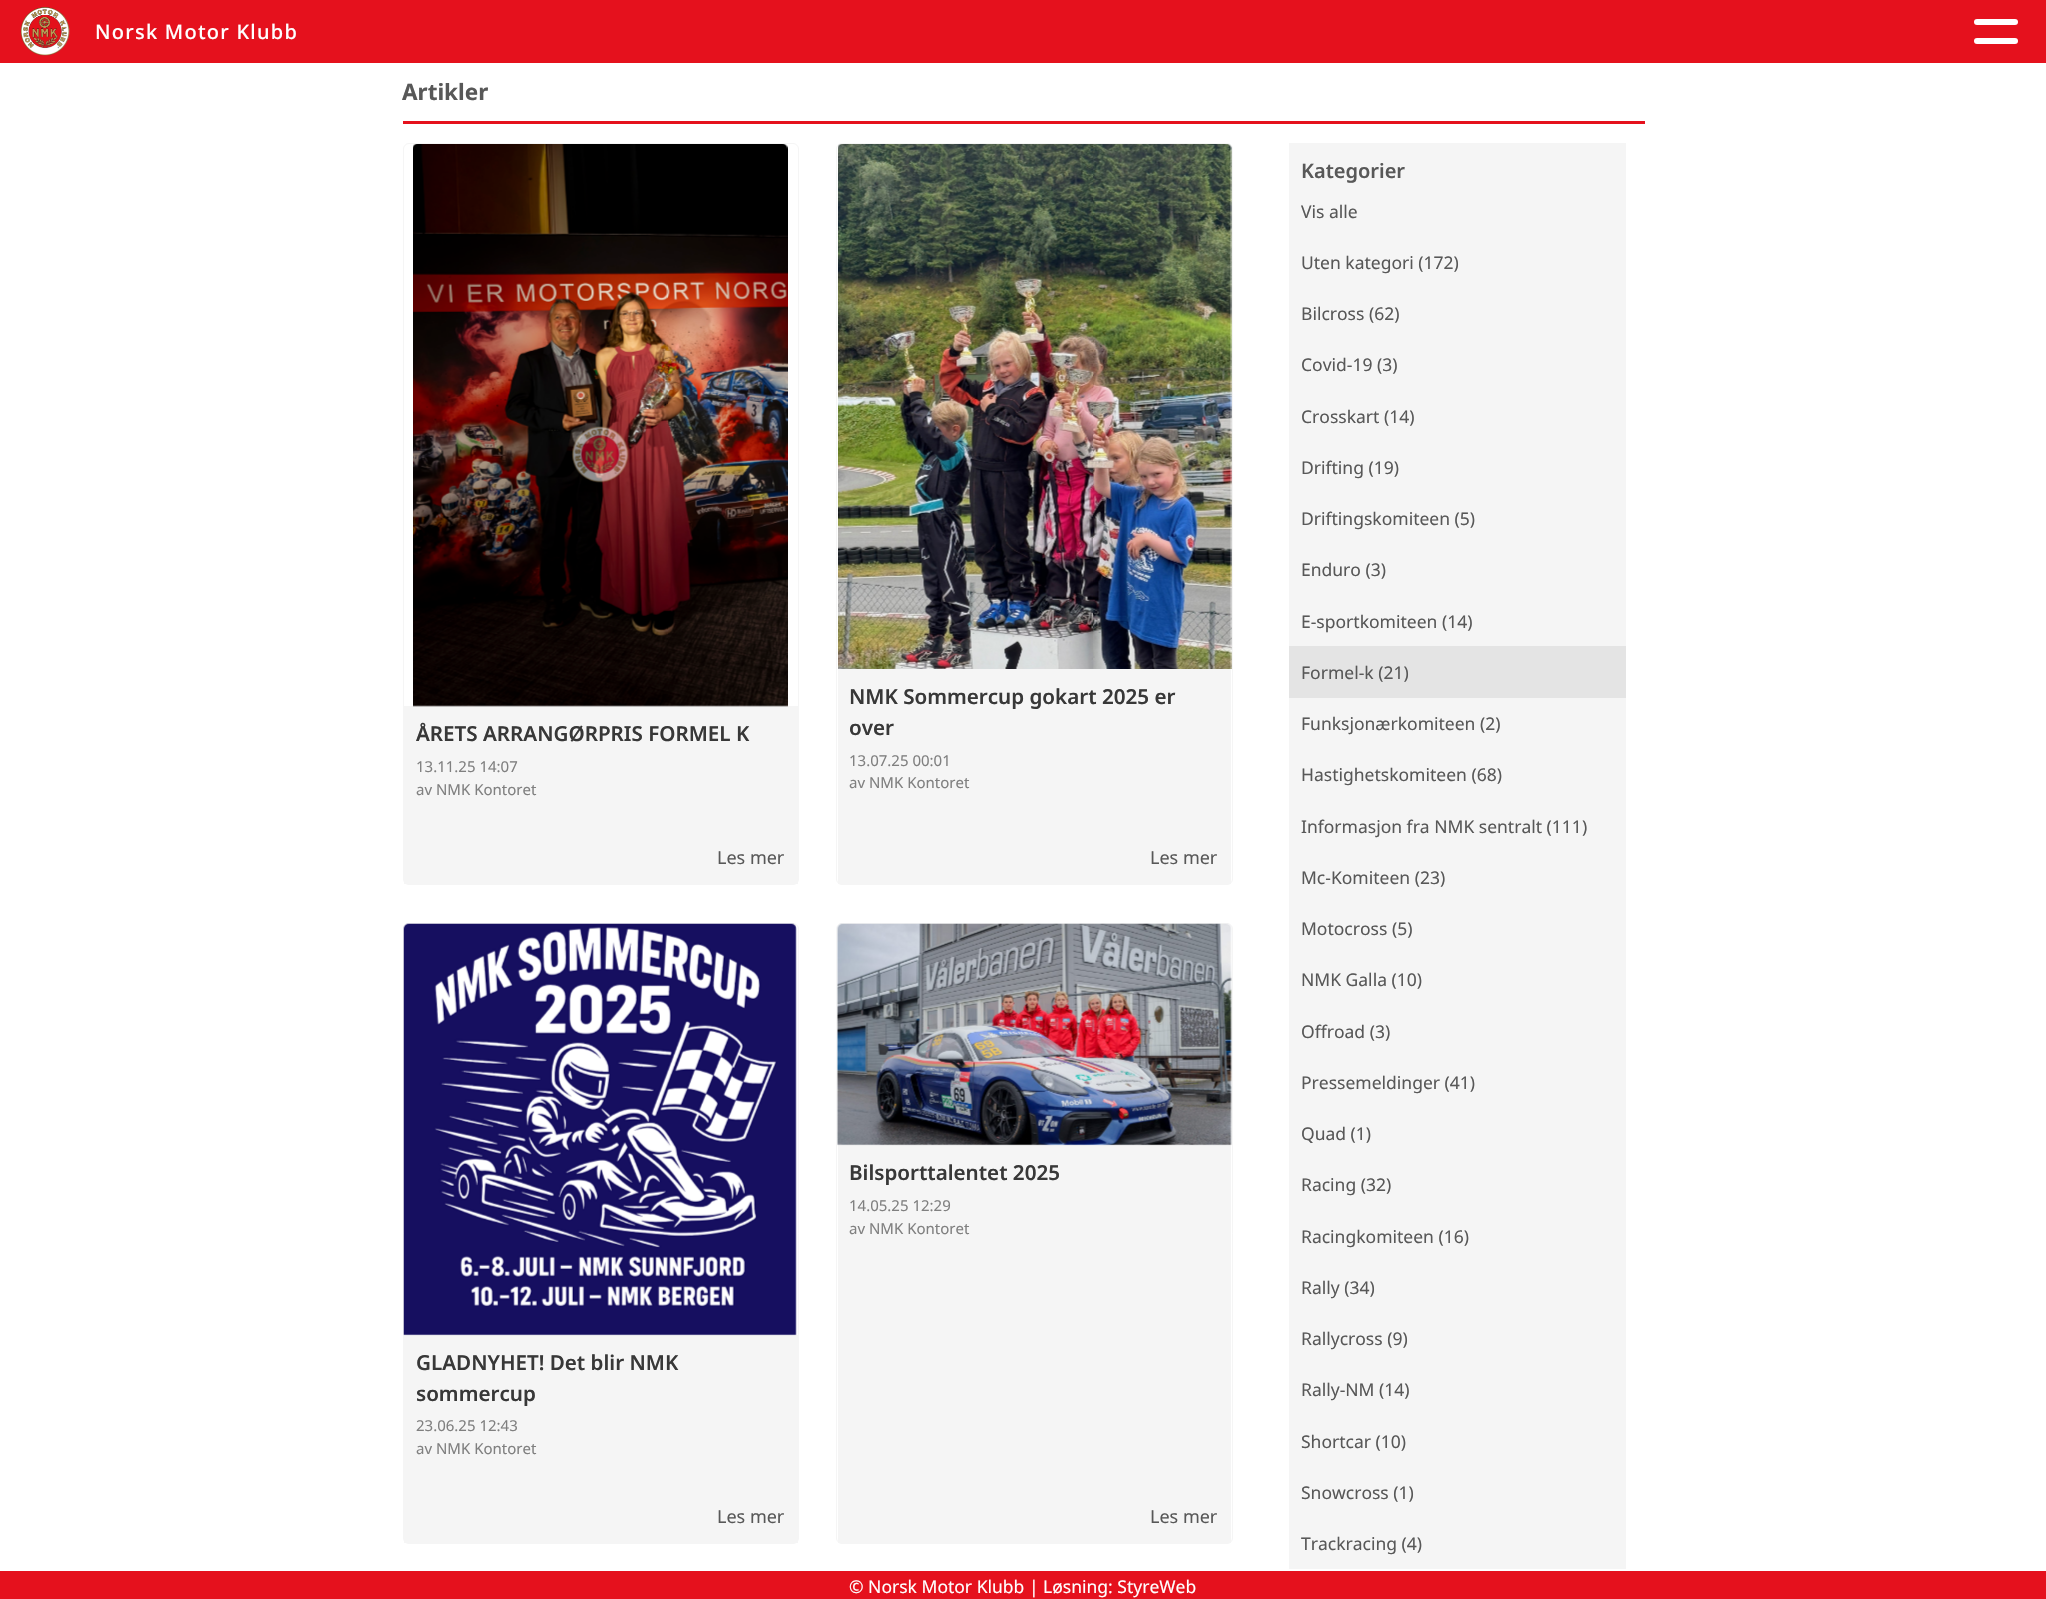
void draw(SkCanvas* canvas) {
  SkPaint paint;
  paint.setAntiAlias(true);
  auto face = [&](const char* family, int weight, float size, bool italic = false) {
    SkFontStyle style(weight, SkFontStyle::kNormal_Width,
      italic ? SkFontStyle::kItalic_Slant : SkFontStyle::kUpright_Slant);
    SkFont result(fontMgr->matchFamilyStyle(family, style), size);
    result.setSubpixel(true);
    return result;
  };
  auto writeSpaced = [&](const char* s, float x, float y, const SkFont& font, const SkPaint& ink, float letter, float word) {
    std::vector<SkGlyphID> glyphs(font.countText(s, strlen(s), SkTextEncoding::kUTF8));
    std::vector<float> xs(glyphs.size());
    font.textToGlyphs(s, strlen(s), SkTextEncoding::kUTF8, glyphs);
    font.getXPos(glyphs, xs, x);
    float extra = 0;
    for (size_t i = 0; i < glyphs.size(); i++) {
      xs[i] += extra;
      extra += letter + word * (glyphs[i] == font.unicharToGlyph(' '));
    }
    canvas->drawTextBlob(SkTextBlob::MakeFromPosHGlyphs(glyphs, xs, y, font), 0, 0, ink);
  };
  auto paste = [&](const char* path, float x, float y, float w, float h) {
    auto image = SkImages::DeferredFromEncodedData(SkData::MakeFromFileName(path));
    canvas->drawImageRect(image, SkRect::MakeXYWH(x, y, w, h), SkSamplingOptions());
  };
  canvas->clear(0xffffffff);
  paint.setColor(0xffe5111d);
  canvas->drawRect(SkRect::MakeXYWH(0, 0, 2046, 63), paint);
  paste("img/1.png", 20, 7, 50, 49);
  paint.setColor(0xffffffff);
  canvas->drawRoundRect(SkRect::MakeXYWH(1974, 19, 44, 6), 3, 3, paint);
  canvas->drawRoundRect(SkRect::MakeXYWH(1974, 38, 44, 6), 3, 3, paint);
  paint.setColor(0xffe5111d);
  canvas->drawRect(SkRect::MakeXYWH(403, 121, 1242, 3), paint);
  paint.setStroke(true);
  paint.setStrokeWidth(1);
  paint.setColor(0xfff5f5f5);
  canvas->drawRoundRect(SkRect::MakeXYWH(403.5f, 143.5f, 395, 741), 5.5f, 5.5f, paint);
  paint.setStroke(false);
  canvas->drawRect(SkRect::MakeXYWH(404, 706, 394, 178), paint);
  paste("img/2.png", 413, 144, 375, 563);
  paint.setStroke(true);
  canvas->drawRoundRect(SkRect::MakeXYWH(836.5f, 143.5f, 396, 741), 5.5f, 5.5f, paint);
  paste("img/3.png", 838, 144, 394, 525);
  paint.setStroke(false);
  canvas->drawRect(SkRect::MakeXYWH(838, 669, 393, 215), paint);
  paint.setStroke(true);
  canvas->drawRoundRect(SkRect::MakeXYWH(403.5f, 923.5f, 395, 620), 5.5f, 5.5f, paint);
  paint.setStroke(false);
  canvas->drawRect(SkRect::MakeXYWH(404, 1335, 394, 208), paint);
  paste("img/4.png", 403, 923, 394, 413);
  paint.setStroke(true);
  canvas->drawRoundRect(SkRect::MakeXYWH(836.5f, 923.5f, 396, 620), 5.5f, 5.5f, paint);
  paint.setStroke(false);
  canvas->drawRect(SkRect::MakeXYWH(838, 1145, 393, 398), paint);
  paste("img/5.png", 837, 923, 395, 223);
  {
    const struct { float x, y, w, h; SkColor color; } items[] = {
      {1289, 143, 337, 1426, 0xfff5f5f5},
      {1289, 646, 337, 52, 0xffe4e4e4},
      {0, 1571, 2046, 28, 0xffe5111d},
    };
    for (auto [x, y, w, h, color] : items) {
      paint.setColor(color);
      canvas->drawRect(SkRect::MakeXYWH(x, y, w, h), paint);
    }
  }
  auto f0 = face("Noto Sans", 500, 20);
  paint.setColor(0xffffffff);
  writeSpaced("Norsk Motor Klubb", 95, 39, f0, paint, 1.25f, 0);
  auto f1 = face("Noto Sans", 700, 22.5f);
  paint.setColor(0xff585858);
  canvas->drawString("Artikler", 402, 100, f1, paint);
  auto f2 = face("Noto Sans", 600, 20.6f);
  paint.setColor(0xff383838);
  canvas->drawString("ÅRETS ARRANGØRPRIS FORMEL K", 416, 741, f2, paint);
  auto f3 = face("Noto Sans", 400, 15);
  paint.setColor(0xff808080);
  canvas->drawString("13.11.25 14:07", 416, 772, f3, paint);
  canvas->drawString("av NMK Kontoret", 416, 795, f3, paint);
  auto f4 = face("Noto Sans", 400, 18);
  paint.setColor(0xff585858);
  canvas->drawString("Les mer", 717, 864, f4, paint);
  paint.setColor(0xff383838);
  canvas->drawString("NMK Sommercup gokart 2025 er", 849, 704, f2, paint);
  canvas->drawString("over", 849, 735, f2, paint);
  paint.setColor(0xff808080);
  canvas->drawString("13.07.25 00:01", 849, 766, f3, paint);
  canvas->drawString("av NMK Kontoret", 849, 788, f3, paint);
  paint.setColor(0xff585858);
  canvas->drawString("Les mer", 1150, 864, f4, paint);
  paint.setColor(0xff383838);
  canvas->drawString("GLADNYHET! Det blir NMK", 416, 1370, f2, paint);
  canvas->drawString("sommercup", 416, 1401, f2, paint);
  paint.setColor(0xff808080);
  canvas->drawString("23.06.25 12:43", 416, 1431, f3, paint);
  canvas->drawString("av NMK Kontoret", 416, 1454, f3, paint);
  paint.setColor(0xff585858);
  canvas->drawString("Les mer", 717, 1523, f4, paint);
  paint.setColor(0xff383838);
  canvas->drawString("Bilsporttalentet 2025", 849, 1180, f2, paint);
  paint.setColor(0xff808080);
  canvas->drawString("14.05.25 12:29", 849, 1211, f3, paint);
  canvas->drawString("av NMK Kontoret", 849, 1234, f3, paint);
  paint.setColor(0xff585858);
  canvas->drawString("Les mer", 1150, 1523, f4, paint);
  auto f5 = face("Noto Sans", 600, 20);
  canvas->drawString("Kategorier", 1301, 178, f5, paint);
  auto f6 = face("Noto Sans", 400, 17.5f);
  {
    const struct { const char* s; float x, y; } items[] = {
      {"Vis alle", 1301, 218},
      {"Uten kategori (172)", 1301, 269},
      {"Bilcross (62)", 1301, 320},
      {"Covid-19 (3)", 1301, 371},
      {"Crosskart (14)", 1301, 423},
      {"Drifting (19)", 1301, 474},
      {"Driftingskomiteen (5)", 1301, 525},
      {"Enduro (3)", 1301, 576},
      {"E-sportkomiteen (14)", 1301, 628},
      {"Formel-k (21)", 1301, 679},
      {"Funksjonærkomiteen (2)", 1301, 730},
      {"Hastighetskomiteen (68)", 1301, 781},
      {"Informasjon fra NMK sentralt (111)", 1301, 833},
      {"Mc-Komiteen (23)", 1301, 884},
      {"Motocross (5)", 1301, 935},
      {"NMK Galla (10)", 1301, 986},
      {"Offroad (3)", 1301, 1038},
      {"Pressemeldinger (41)", 1301, 1089},
      {"Quad (1)", 1301, 1140},
      {"Racing (32)", 1301, 1191},
      {"Racingkomiteen (16)", 1301, 1243},
      {"Rally (34)", 1301, 1294},
      {"Rallycross (9)", 1301, 1345},
      {"Rally-NM (14)", 1301, 1396},
      {"Shortcar (10)", 1301, 1448},
      {"Snowcross (1)", 1301, 1499},
      {"Trackracing (4)", 1301, 1550},
    };
    for (auto [s, x, y] : items) {
      canvas->drawString(s, x, y, f6, paint);
    }
  }
  paint.setColor(0xffffffff);
  canvas->drawString("© Norsk Motor Klubb | Løsning: StyreWeb", 849, 1593, f6, paint);
}
